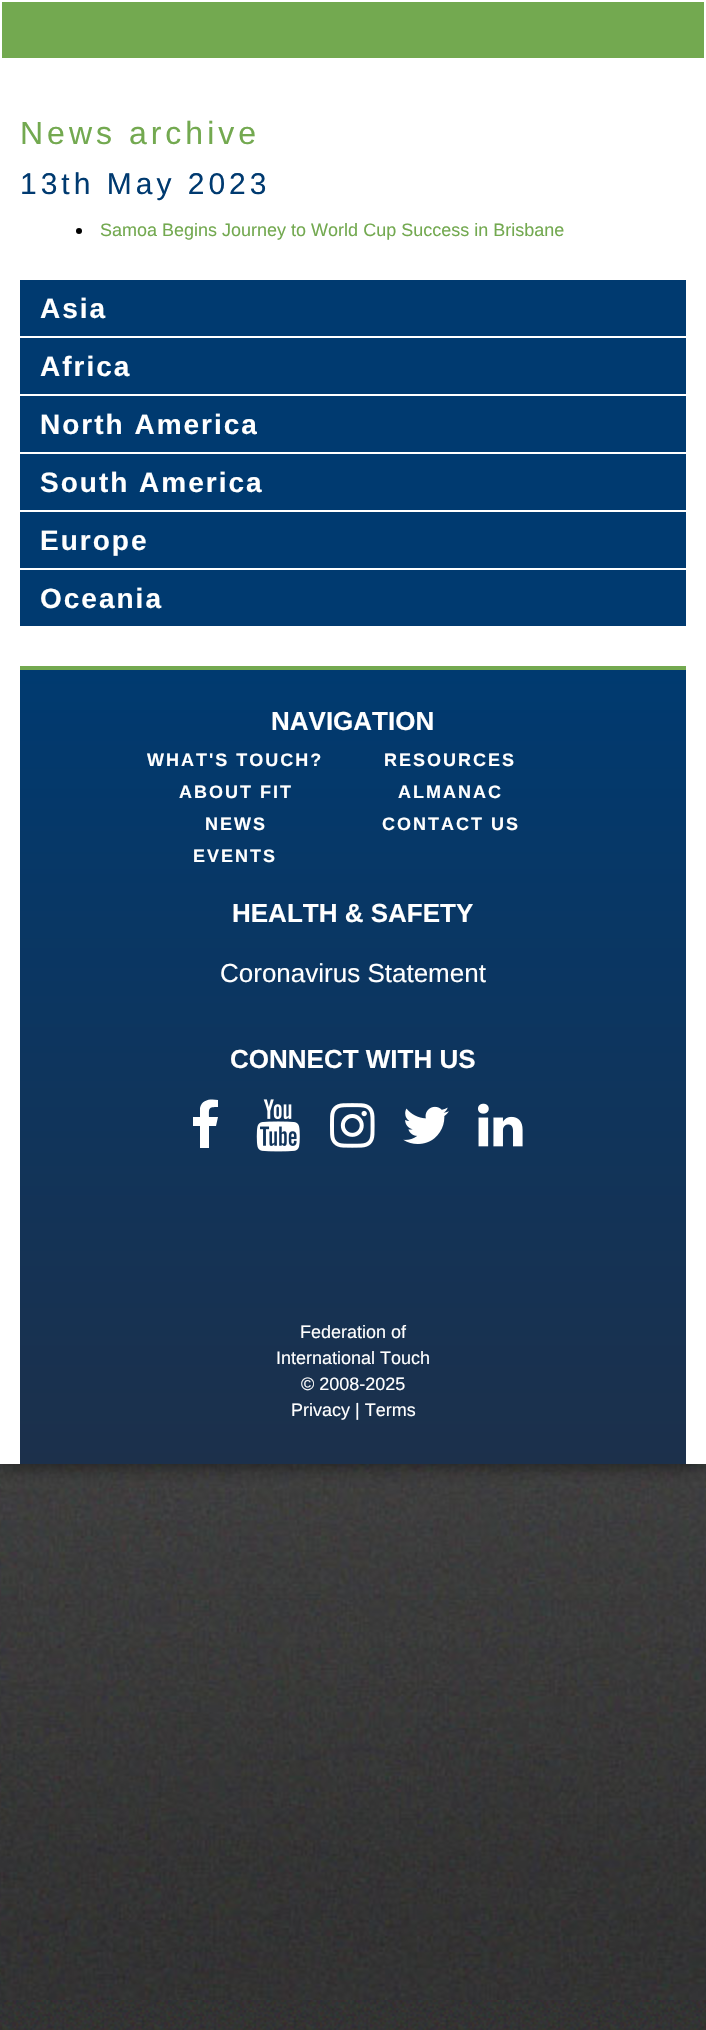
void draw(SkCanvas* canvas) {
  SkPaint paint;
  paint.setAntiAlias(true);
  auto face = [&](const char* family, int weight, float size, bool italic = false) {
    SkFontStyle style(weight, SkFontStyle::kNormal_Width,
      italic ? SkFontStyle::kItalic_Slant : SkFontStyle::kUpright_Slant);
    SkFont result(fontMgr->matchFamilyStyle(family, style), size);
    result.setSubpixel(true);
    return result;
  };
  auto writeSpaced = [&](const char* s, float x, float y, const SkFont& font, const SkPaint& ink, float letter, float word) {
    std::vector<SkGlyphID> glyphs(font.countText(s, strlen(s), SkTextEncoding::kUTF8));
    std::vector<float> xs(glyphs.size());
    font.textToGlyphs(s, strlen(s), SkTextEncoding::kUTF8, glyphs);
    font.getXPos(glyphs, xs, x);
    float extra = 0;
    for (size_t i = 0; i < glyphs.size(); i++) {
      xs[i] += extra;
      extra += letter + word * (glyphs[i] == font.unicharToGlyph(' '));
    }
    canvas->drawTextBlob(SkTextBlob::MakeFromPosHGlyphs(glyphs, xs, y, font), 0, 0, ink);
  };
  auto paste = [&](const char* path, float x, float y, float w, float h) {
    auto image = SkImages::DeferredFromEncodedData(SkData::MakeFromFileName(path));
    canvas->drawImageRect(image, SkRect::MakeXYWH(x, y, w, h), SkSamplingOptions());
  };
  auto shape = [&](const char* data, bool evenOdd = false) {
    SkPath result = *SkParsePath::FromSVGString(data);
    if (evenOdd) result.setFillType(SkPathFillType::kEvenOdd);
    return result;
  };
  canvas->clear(0xffffffff);
  paste("img/1.png", 0, 2000, 706, 30);
  paste("img/2.png", 0, 1464, 706, 536);
  paint.setColor(0x99000000);
  paint.setMaskFilter(SkMaskFilter::MakeBlur(kNormal_SkBlurStyle, 10));
  canvas->drawRect(SkRect::MakeXYWH(0, 0, 706, 1464), paint);
  paint.setMaskFilter(nullptr);
  paint.setColor(0xffffffff);
  canvas->drawRect(SkRect::MakeXYWH(0, 60, 706, 1404), paint);
  paint.setColor(0xff73a950);
  canvas->drawRect(SkRect::MakeXYWH(1, 1, 704, 58), paint);
  paint.setStroke(true);
  paint.setStrokeWidth(2);
  paint.setColor(0xffffffff);
  canvas->drawRect(SkRect::MakeXYWH(1, 1, 704, 58), paint);
  paint.setStroke(false);
  paint.setColor(0xff000000);
  canvas->drawCircle(79, 231, 3, paint);
  {
    const struct { float x, y, w, h; SkColor color; } items[] = {
      {20, 280, 666, 56, 0xff003a70},
      {20, 338, 666, 56, 0xff003a70},
      {20, 396, 666, 56, 0xff003a70},
      {20, 454, 666, 56, 0xff003a70},
      {20, 512, 666, 56, 0xff003a70},
      {20, 570, 666, 56, 0xff003a70},
    };
    for (auto [x, y, w, h, color] : items) {
      paint.setColor(color);
      canvas->drawRect(SkRect::MakeXYWH(x, y, w, h), paint);
    }
  }
  {
    const SkColor colors[] = {0xff003a70, 0xff1c304b};
    const float stops[] = {0, 1};
    const SkPoint ends[] = {{353, 670}, {353, 1464}};
    paint.setShader(SkGradientShader::MakeLinear(ends, colors, stops, 2, SkTileMode::kClamp));
    paint.setAlpha(255);
  }
  canvas->drawRect(SkRect::MakeXYWH(20, 670, 666, 794), paint);
  paint.setShader(nullptr);
  paint.setColor(0xff73a950);
  canvas->drawRect(SkRect::MakeXYWH(20, 666, 666, 4), paint);
  paint.setColor(0xffffffff);
  canvas->drawPath(shape("M218 1100V1107C208 1107 209 1108 209 1117H218L216 1126H209V1148H200V1126H193V1117H200V1108C202 1099 211 1099 218 1100Z"), paint);
  paste("img/3.png", 256, 1099, 44, 53);
  paste("img/4.png", 330, 1103, 45, 45);
  paste("img/5.png", 403, 1106, 46, 38);
  paste("img/6.png", 478, 1103, 45, 44);
  auto f0 = face("Liberation Sans", 400, 32);
  paint.setColor(0xff73a950);
  writeSpaced("News archive", 20, 144, f0, paint, 4, 0);
  auto f1 = face("Liberation Sans", 400, 30);
  paint.setColor(0xff003a70);
  writeSpaced("13th May 2023", 20, 194, f1, paint, 4, 0);
  auto f2 = face("Liberation Sans", 400, 18);
  paint.setColor(0xff73a950);
  canvas->drawString("Samoa Begins Journey to World Cup Success in Brisbane", 100, 236, f2, paint);
  auto f3 = face("Liberation Sans", 700, 28);
  paint.setColor(0xffffffff);
  {
    const struct { const char* s; float x, y; } items[] = {
      {"Asia", 40, 318},
      {"Africa", 40, 376},
      {"North America", 40, 434},
      {"South America", 40, 492},
      {"Europe", 40, 550},
      {"Oceania", 40, 608},
    };
    for (auto [s, x, y] : items) {
      writeSpaced(s, x, y, f3, paint, 2, 0);
    }
  }
  auto f4 = face("Liberation Sans", 700, 26);
  canvas->drawString("NAVIGATION", 271, 730, f4, paint);
  auto f5 = face("Liberation Sans", 700, 18);
  {
    const struct { const char* s; float x, y; } items[] = {
      {"WHAT'S TOUCH?", 147, 766},
      {"ABOUT FIT", 179, 798},
      {"NEWS", 205, 830},
      {"EVENTS", 193, 862},
      {"RESOURCES", 384, 766},
      {"ALMANAC", 398, 798},
      {"CONTACT US", 382, 830},
    };
    for (auto [s, x, y] : items) {
      writeSpaced(s, x, y, f5, paint, 2, 0);
    }
  }
  canvas->drawString("HEALTH & SAFETY", 232, 922, f4, paint);
  auto f6 = face("Liberation Sans", 400, 26);
  canvas->drawString("Coronavirus Statement", 220, 982, f6, paint);
  canvas->drawString("CONNECT WITH US", 230, 1068, f4, paint);
  {
    const struct { const char* s; float x, y; } items[] = {
      {"Federation of", 300, 1338},
      {"International Touch", 276, 1364},
      {"© 2008-2025", 301, 1390},
      {"Privacy | Terms", 291, 1416},
    };
    for (auto [s, x, y] : items) {
      canvas->drawString(s, x, y, f2, paint);
    }
  }
}
